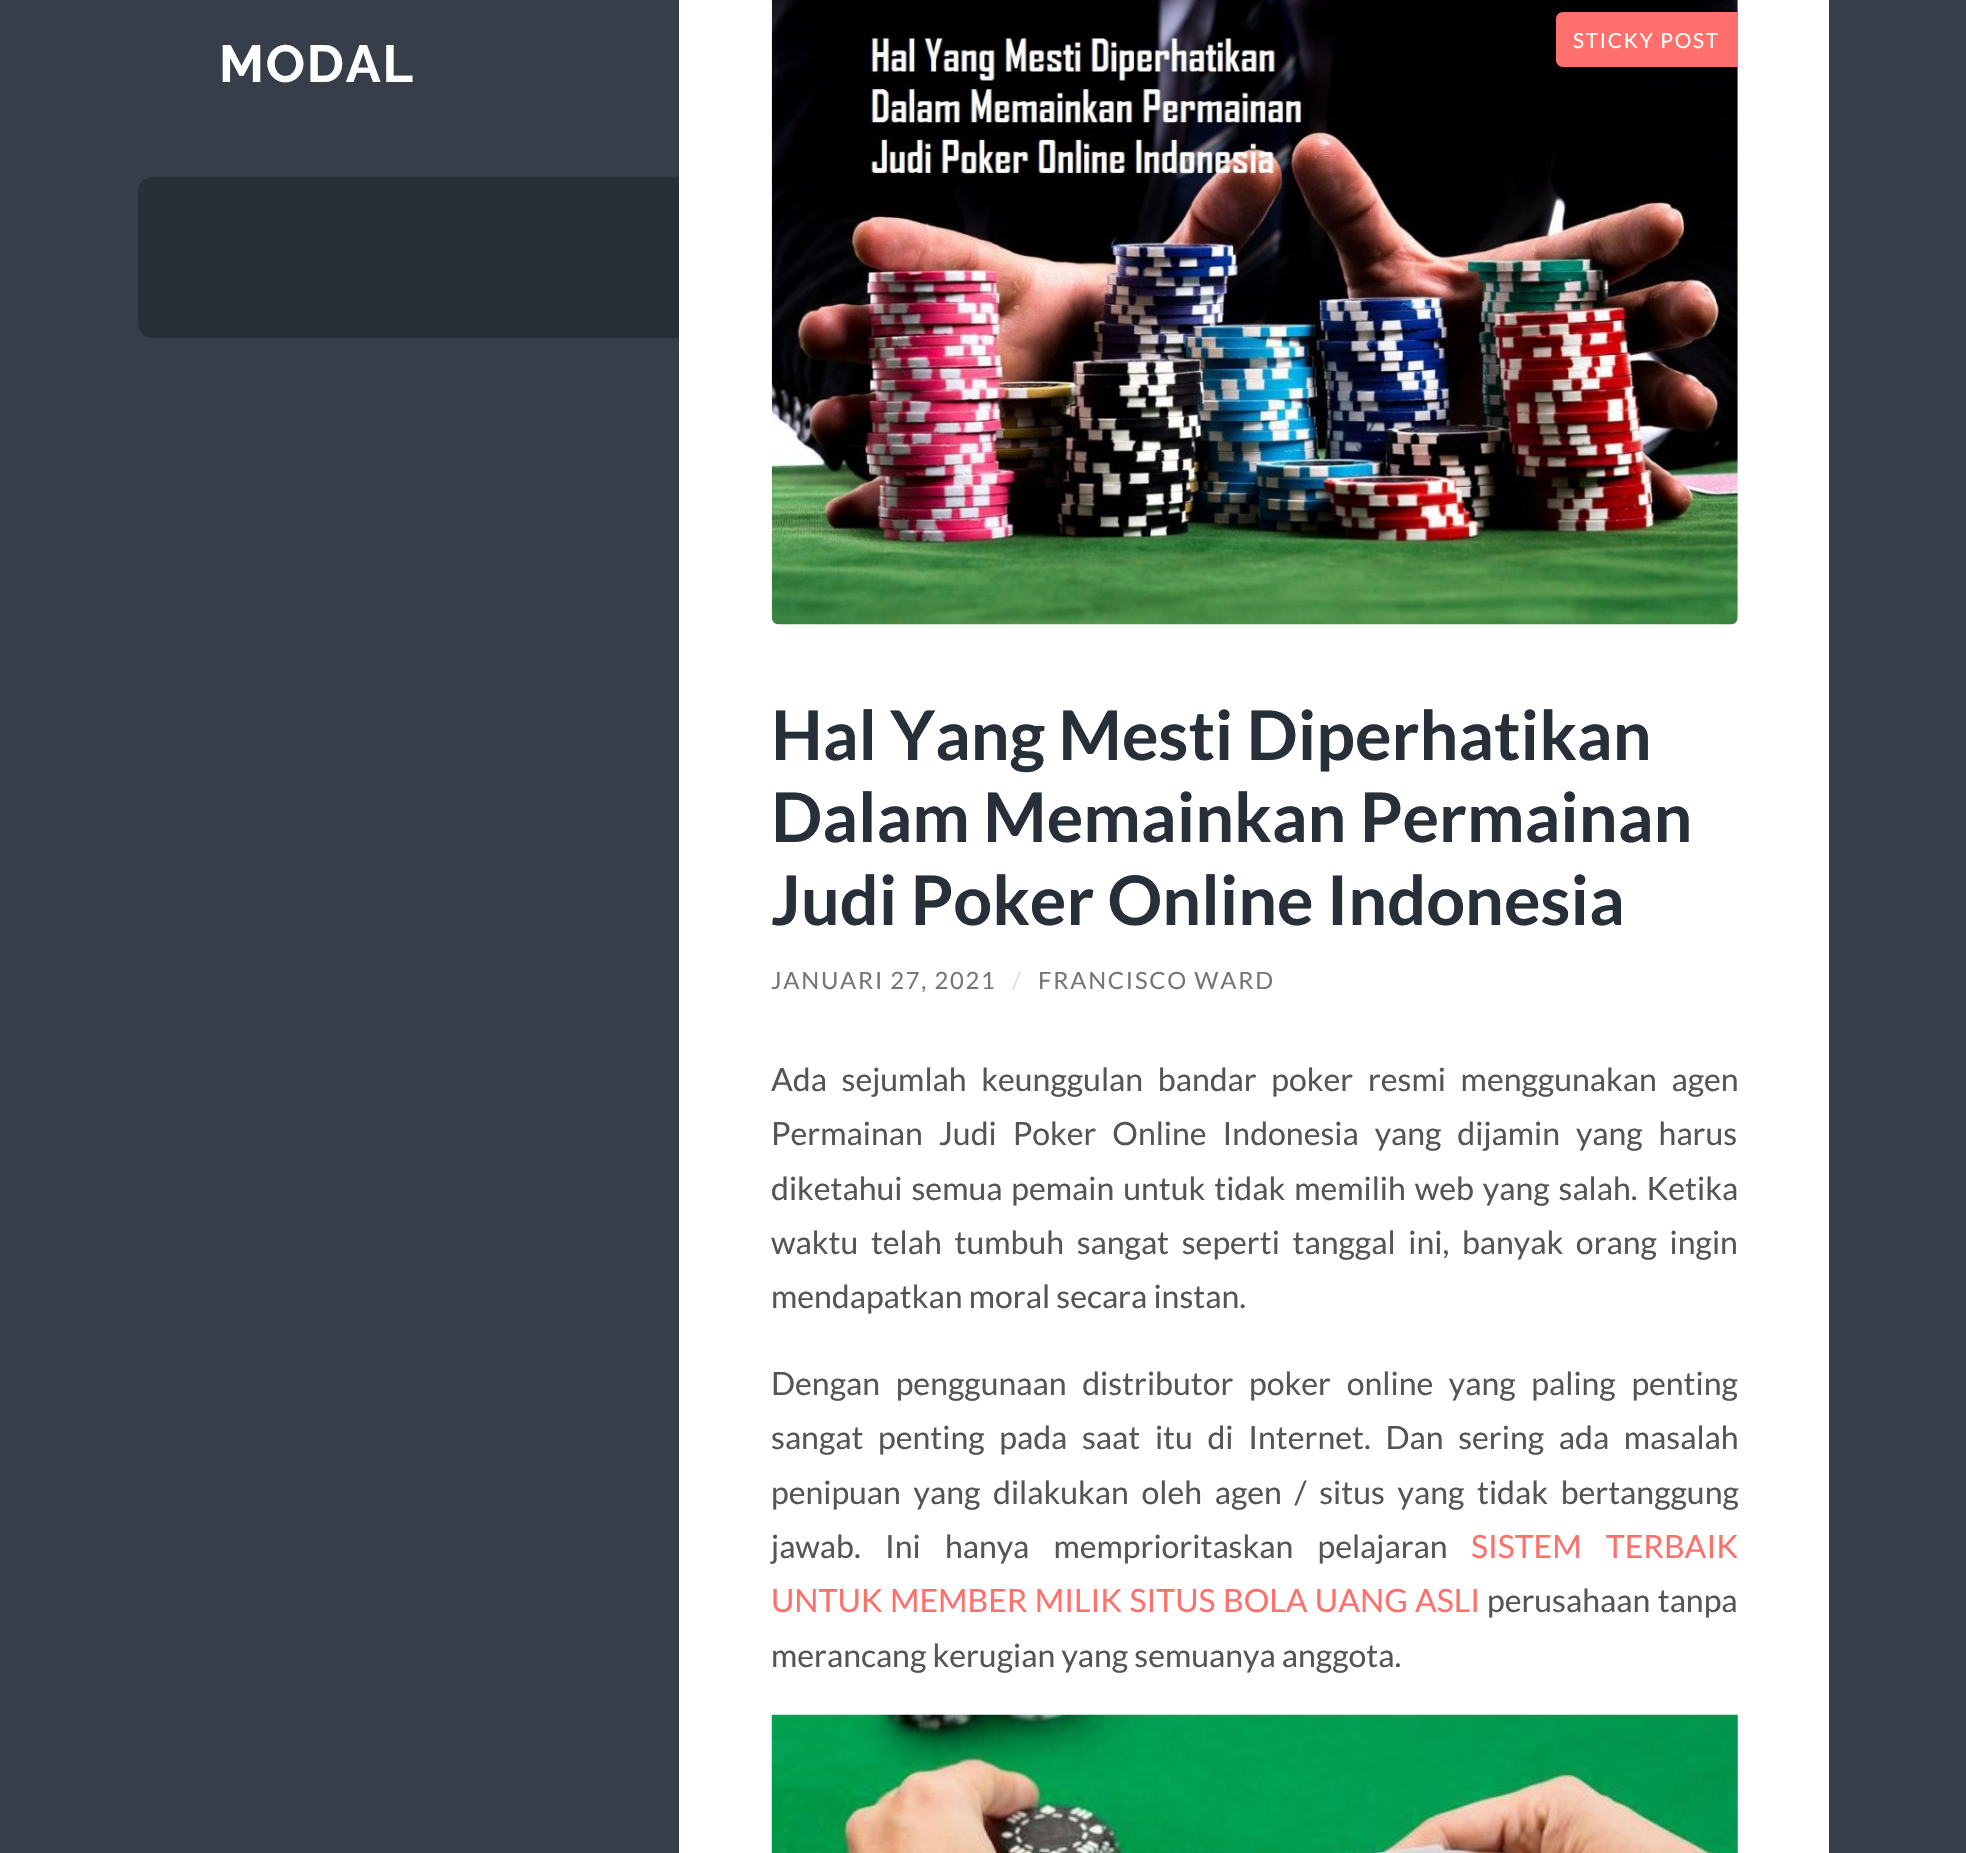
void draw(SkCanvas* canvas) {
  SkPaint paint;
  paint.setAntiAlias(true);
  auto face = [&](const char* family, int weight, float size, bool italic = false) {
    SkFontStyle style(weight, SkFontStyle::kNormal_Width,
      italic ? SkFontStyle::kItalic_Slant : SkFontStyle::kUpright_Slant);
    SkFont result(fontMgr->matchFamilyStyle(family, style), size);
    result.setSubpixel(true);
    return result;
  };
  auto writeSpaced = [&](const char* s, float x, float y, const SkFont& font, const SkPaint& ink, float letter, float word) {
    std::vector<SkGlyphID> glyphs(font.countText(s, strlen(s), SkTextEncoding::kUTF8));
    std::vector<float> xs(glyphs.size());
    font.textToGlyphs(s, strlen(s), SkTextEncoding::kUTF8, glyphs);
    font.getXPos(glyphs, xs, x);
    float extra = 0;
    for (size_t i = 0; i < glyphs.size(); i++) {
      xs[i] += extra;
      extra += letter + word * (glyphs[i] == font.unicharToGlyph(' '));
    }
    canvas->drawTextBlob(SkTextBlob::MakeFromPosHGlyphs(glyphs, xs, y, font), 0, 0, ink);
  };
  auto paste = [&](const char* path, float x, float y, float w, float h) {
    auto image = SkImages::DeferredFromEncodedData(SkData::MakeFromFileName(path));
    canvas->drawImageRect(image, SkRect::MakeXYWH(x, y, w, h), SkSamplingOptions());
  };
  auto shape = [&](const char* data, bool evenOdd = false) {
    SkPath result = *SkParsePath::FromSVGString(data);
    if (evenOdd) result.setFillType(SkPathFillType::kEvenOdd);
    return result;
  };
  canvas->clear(0xff353e49);
  paint.setColor(0xff272f38);
  canvas->drawPath(shape("M152 177H679V338H152C144.5 338 138 331.5 138 324V191C138 183.5 144.5 177 152 177Z"), paint);
  paint.setColor(0xffffffff);
  canvas->drawRect(SkRect::MakeXYWH(679, 0, 1150, 1853), paint);
  paste("img/1.png", 771, 0, 967, 625);
  paint.setColor(0xffff706c);
  canvas->drawPath(shape("M1563 12H1738V67H1563C1559 67 1556 64 1556 60V19C1556 15 1559 12 1563 12Z"), paint);
  paste("img/2.png", 771, 1714, 967, 139);
  auto f0 = face("Raleway", 100, 52);
  paint.setColor(0xffffffff);
  writeSpaced("MODAL", 219, 82, f0, paint, 1.75f, 0);
  auto f1 = face("Lato", 400, 20.75f);
  writeSpaced("STICKY POST", 1573, 48, f1, paint, 1.75f, 0);
  auto f2 = face("Lato", 700, 68.4f);
  paint.setColor(0xff272f38);
  {
    const struct { const char* s; float x, y; } items[] = {
      {"Hal Yang Mesti Diperhatikan", 771, 760},
      {"Dalam Memainkan Permainan", 771, 842},
      {"Judi Poker Online Indonesia", 771, 925},
    };
    for (auto [s, x, y] : items) {
      canvas->drawString(s, x, y, f2, paint);
    }
  }
  auto f3 = face("Lato", 400, 23.75f);
  paint.setColor(0xff767676);
  writeSpaced("JANUARI 27, 2021", 771, 989, f3, paint, 1.75f, 0);
  paint.setColor(0xffdddddd);
  writeSpaced("/", 1012, 989, f3, paint, 1.75f, 0);
  paint.setColor(0xff767676);
  writeSpaced("FRANCISCO WARD", 1038, 989, f3, paint, 1.75f, 0);
  auto f4 = face("Lato", 400, 32);
  paint.setColor(0xff555555);
  writeSpaced("Ada sejumlah keunggulan bandar poker resmi menggunakan agen", 771, 1091, f4, paint, 0, 8.5f);
  writeSpaced("Permainan Judi Poker Online Indonesia yang dijamin yang harus", 771, 1145, f4, paint, 0, 9.75f);
  writeSpaced("diketahui semua pemain untuk tidak memilih web yang salah. Ketika", 771, 1200, f4, paint, 0, 2.75f);
  writeSpaced("waktu telah tumbuh sangat seperti tanggal ini, banyak orang ingin", 771, 1254, f4, paint, 0, 6.5f);
  canvas->drawString("mendapatkan moral secara instan.", 771, 1308, f4, paint);
  writeSpaced("Dengan penggunaan distributor poker online yang paling penting", 771, 1395, f4, paint, 0, 9.5f);
  writeSpaced("sangat penting pada saat itu di Internet. Dan sering ada masalah", 771, 1449, f4, paint, 0, 8.5f);
  writeSpaced("penipuan yang dilakukan oleh agen / situs yang tidak bertanggung", 771, 1504, f4, paint, 0, 6.5f);
  writeSpaced("jawab. Ini hanya memprioritaskan pelajaran", 771, 1558, f4, paint, 0, 18);
  paint.setColor(0xffff706c);
  writeSpaced("SISTEM TERBAIK", 1471, 1558, f4, paint, 0, 18);
  writeSpaced("UNTUK MEMBER MILIK SITUS BOLA UANG ASLI", 771, 1612, f4, paint, 0, 1.25f);
  paint.setColor(0xff555555);
  writeSpaced("perusahaan tanpa", 1487, 1612, f4, paint, 0, 1.25f);
  canvas->drawString("merancang kerugian yang semuanya anggota.", 771, 1667, f4, paint);
}
